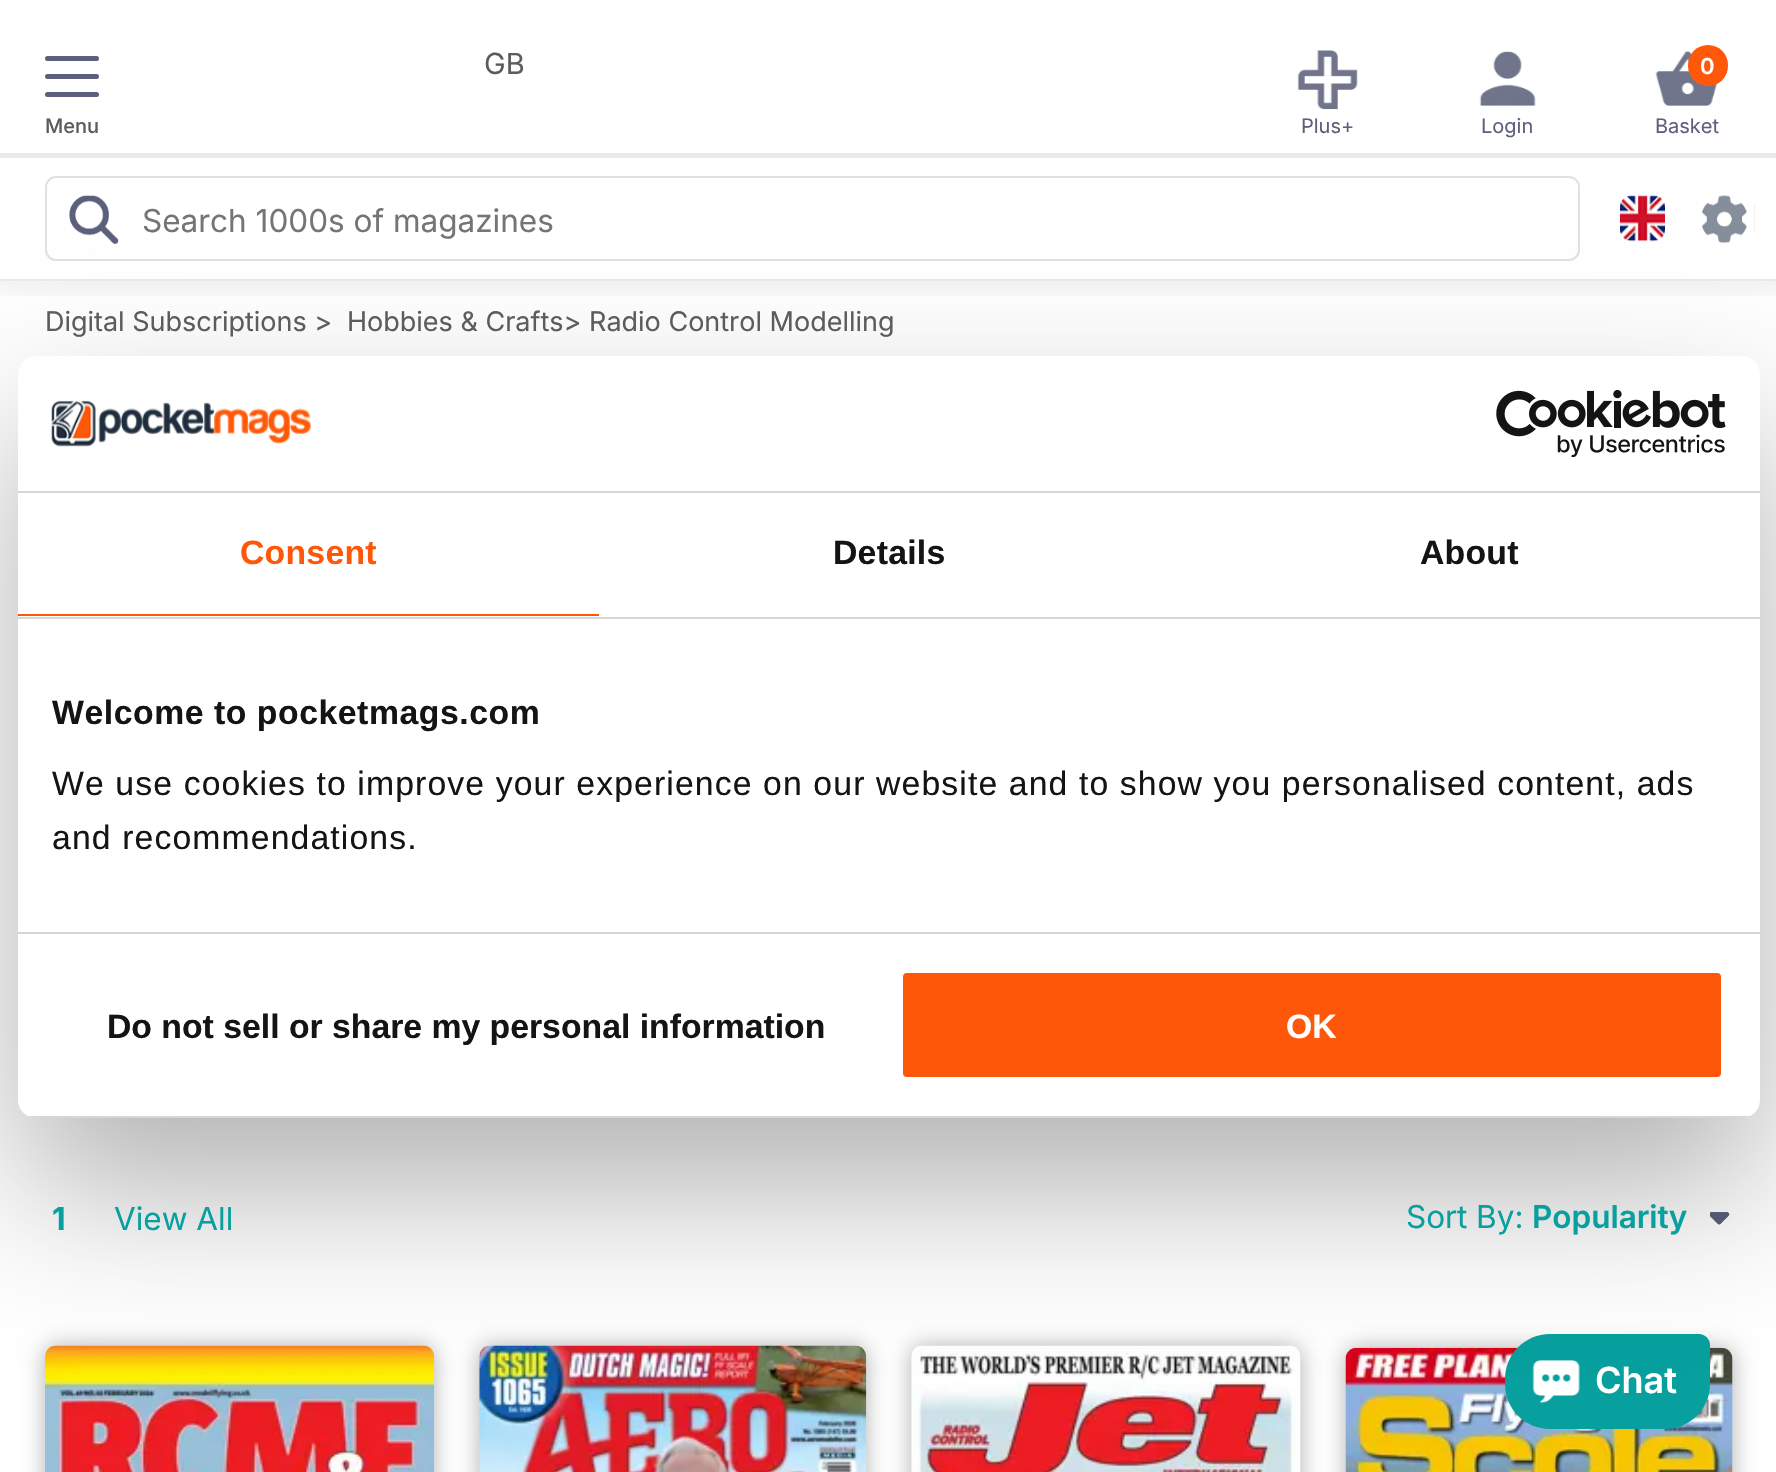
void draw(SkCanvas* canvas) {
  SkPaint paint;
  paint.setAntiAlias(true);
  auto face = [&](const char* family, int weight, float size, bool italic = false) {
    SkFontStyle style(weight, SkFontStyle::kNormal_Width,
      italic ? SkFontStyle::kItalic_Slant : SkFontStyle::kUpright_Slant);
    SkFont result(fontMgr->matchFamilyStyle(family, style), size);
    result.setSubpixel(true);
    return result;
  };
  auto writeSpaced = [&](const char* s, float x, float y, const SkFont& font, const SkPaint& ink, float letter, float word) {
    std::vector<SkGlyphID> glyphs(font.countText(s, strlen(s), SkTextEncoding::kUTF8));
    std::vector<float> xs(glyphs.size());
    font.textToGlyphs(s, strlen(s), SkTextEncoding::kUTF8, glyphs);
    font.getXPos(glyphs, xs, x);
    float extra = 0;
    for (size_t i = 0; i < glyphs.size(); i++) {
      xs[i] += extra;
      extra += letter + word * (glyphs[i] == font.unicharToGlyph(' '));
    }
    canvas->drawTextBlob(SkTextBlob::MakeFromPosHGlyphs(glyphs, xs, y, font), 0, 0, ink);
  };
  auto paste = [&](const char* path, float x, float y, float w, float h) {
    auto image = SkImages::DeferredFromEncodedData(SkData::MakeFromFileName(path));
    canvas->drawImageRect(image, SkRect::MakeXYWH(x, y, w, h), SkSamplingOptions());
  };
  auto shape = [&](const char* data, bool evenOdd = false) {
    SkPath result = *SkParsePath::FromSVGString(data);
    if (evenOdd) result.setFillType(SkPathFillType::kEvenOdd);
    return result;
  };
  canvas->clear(0xffffffff);
  canvas->save();
  canvas->clipRect(SkRect::MakeXYWH(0, 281, 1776, 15));
  paint.setColor(0x0d000000);
  paint.setMaskFilter(SkMaskFilter::MakeBlur(kNormal_SkBlurStyle, 11));
  canvas->drawRect(SkRect::MakeXYWH(-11, -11, 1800, 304), paint);
  paint.setMaskFilter(nullptr);
  canvas->restore();
  paint.setColor(0xffeaeaea);
  canvas->drawRect(SkRect::MakeXYWH(0, 153, 1776, 5), paint);
  paint.setColor(0xff5c607c);
  canvas->drawRoundRect(SkRect::MakeXYWH(45, 56, 54, 5), 2.5f, 2.5f, paint);
  canvas->drawRoundRect(SkRect::MakeXYWH(45, 74, 54, 5), 2.5f, 2.5f, paint);
  canvas->drawRoundRect(SkRect::MakeXYWH(45, 92, 54, 5), 2.5f, 2.5f, paint);
  paste("img/1.png", 1297, 50, 61, 60);
  paste("img/2.png", 1479, 51, 57, 55);
  paste("img/3.png", 1655, 51, 63, 55);
  paint.setColor(0xffff580a);
  canvas->drawRoundRect(SkRect::MakeXYWH(1688, 45, 40, 41), 20, 20, paint);
  paint.setColor(0xffeaeaea);
  canvas->drawRect(SkRect::MakeXYWH(0, 279, 1776, 2), paint);
  paint.setStroke(true);
  paint.setStrokeWidth(2);
  paint.setColor(0xffe1e1e1);
  canvas->drawRoundRect(SkRect::MakeXYWH(46, 177, 1533, 83), 10, 10, paint);
  paste("img/4.png", 69, 195, 50, 59);
  paste("img/5.png", 1620, 195, 45, 47);
  paste("img/6.png", 1702, 195, 53, 49);
  paste("img/7.png", 1710, 1212, 20, 13);
  paint.setStroke(false);
  paint.setColor(0x4d000000);
  paint.setMaskFilter(SkMaskFilter::MakeBlur(kNormal_SkBlurStyle, 11));
  canvas->drawRoundRect(SkRect::MakeXYWH(45, 1346, 389, 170), 11, 11, paint);
  paint.setMaskFilter(nullptr);
  paste("img/8.png", 45, 1345, 390, 127);
  paint.setMaskFilter(SkMaskFilter::MakeBlur(kNormal_SkBlurStyle, 11));
  canvas->drawRoundRect(SkRect::MakeXYWH(479, 1346, 387, 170), 11, 11, paint);
  paint.setMaskFilter(nullptr);
  paste("img/9.png", 479, 1345, 388, 127);
  paint.setMaskFilter(SkMaskFilter::MakeBlur(kNormal_SkBlurStyle, 11));
  canvas->drawRoundRect(SkRect::MakeXYWH(911, 1346, 390, 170), 11, 11, paint);
  paint.setMaskFilter(nullptr);
  paste("img/10.png", 911, 1345, 390, 127);
  paint.setMaskFilter(SkMaskFilter::MakeBlur(kNormal_SkBlurStyle, 11));
  canvas->drawRoundRect(SkRect::MakeXYWH(1346, 1348, 387, 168), 11, 11, paint);
  paint.setMaskFilter(nullptr);
  paste("img/11.png", 1345, 1347, 388, 125);
  paint.setColor(0xff07a09e);
  canvas->drawPath(shape("M1550 1334H1699C1705 1334 1710 1339 1710 1345V1384C1710 1409 1690 1429 1665 1429H1550C1525 1429 1505 1409 1505 1384V1379C1505 1354 1525 1334 1550 1334Z"), paint);
  paste("img/12.png", 1532, 1360, 48, 43);
  paint.setColor(0x4d000000);
  paint.setMaskFilter(SkMaskFilter::MakeBlur(kNormal_SkBlurStyle, 76.5f));
  canvas->drawRoundRect(SkRect::MakeXYWH(18, 428, 1742, 762), 18, 18, paint);
  paint.setMaskFilter(nullptr);
  paint.setColor(0xffffffff);
  canvas->drawRoundRect(SkRect::MakeXYWH(18, 356, 1742, 762), 18, 18, paint);
  paint.setColor(0xffd6d6d6);
  canvas->drawRect(SkRect::MakeXYWH(18, 491, 1742, 2), paint);
  paste("img/13.png", 51, 400, 260, 47);
  paste("img/14.png", 1496, 390, 230, 67);
  {
    const struct { float x, y, w, h; SkColor color; } items[] = {
      {18, 617, 1742, 2, 0xffd6d6d6},
      {18, 614, 581, 2, 0xffff5709},
      {18, 932, 1742, 2, 0xffd6d6d6},
    };
    for (auto [x, y, w, h, color] : items) {
      paint.setColor(color);
      canvas->drawRect(SkRect::MakeXYWH(x, y, w, h), paint);
    }
  }
  canvas->save();
  canvas->clipPath(shape("M36 356H1742C1752 356 1760 364 1760 374V1100C1760 1110 1752 1118 1742 1118H36C26 1118 18 1110 18 1100V374C18 364 26 356 36 356Z"), true);
  canvas->drawRect(SkRect::MakeXYWH(28, 1116, 1722, 2), paint);
  canvas->restore();
  paint.setColor(0xffff5709);
  canvas->drawRoundRect(SkRect::MakeXYWH(900.5f, 970.5f, 823, 109), 6.5f, 6.5f, paint);
  paint.setStroke(true);
  paint.setStrokeWidth(5);
  paint.setColor(0xffffffff);
  canvas->drawRoundRect(SkRect::MakeXYWH(900.5f, 970.5f, 823, 109), 6.5f, 6.5f, paint);
  auto f0 = face("Inter", 500, 20);
  paint.setStroke(false);
  paint.setColor(0xff5c5c5c);
  canvas->drawString("Menu", 45, 133, f0, paint);
  auto f1 = face("Inter", 400, 29);
  canvas->drawString("GB", 484, 74, f1, paint);
  auto f2 = face("Inter", 400, 20);
  paint.setColor(0xff5c607c);
  canvas->drawString("Plus+", 1301, 133, f2, paint);
  canvas->drawString("Login", 1481, 133, f2, paint);
  auto f3 = face("Inter", 600, 22);
  paint.setColor(0xffffffff);
  canvas->drawString("0", 1700, 74, f3, paint);
  paint.setColor(0xff5c607c);
  canvas->drawString("Basket", 1655, 133, f2, paint);
  auto f4 = face("Inter", 400, 31.5f);
  paint.setColor(0xff757575);
  canvas->drawString("Search 1000s of magazines", 142, 232, f4, paint);
  auto f5 = face("Inter", 400, 27);
  paint.setColor(0xff5c5c5c);
  canvas->drawString("Digital Subscriptions >", 45, 331, f5, paint);
  canvas->drawString("Hobbies & Crafts> Radio Control Modelling", 347, 331, f5, paint);
  auto f6 = face("Inter", 700, 31.5f);
  paint.setColor(0xff079f9f);
  canvas->drawString("1", 52, 1230, f6, paint);
  canvas->drawString("View All", 114, 1230, f4, paint);
  canvas->drawString("Sort By:", 1406, 1228, f4, paint);
  auto f7 = face("Inter", 600, 31.5f);
  canvas->drawString("Popularity", 1532, 1228, f7, paint);
  auto f8 = face("Inter", 600, 36);
  paint.setColor(0xffffffff);
  canvas->drawString("Chat", 1595, 1393, f8, paint);
  auto f9 = face("Liberation Sans", 700, 33.75f);
  paint.setColor(0xffff5709);
  writeSpaced("Consent", 240, 564, f9, paint, 0.25f, 0);
  paint.setColor(0xff141414);
  writeSpaced("Details", 833, 564, f9, paint, 0.25f, 0);
  writeSpaced("About", 1420, 564, f9, paint, 0.25f, 0);
  writeSpaced("Welcome to pocketmags.com", 52, 724, f9, paint, 0.55f, 0);
  auto f10 = face("Liberation Sans", 400, 33.75f);
  writeSpaced("We use cookies to improve your experience on our website and to show you personalised content, ads", 52, 795, f10, paint, 1.12f, 0);
  writeSpaced("and recommendations.", 52, 849, f10, paint, 1.12f, 0);
  canvas->drawString("Do not sell or share my personal information", 107, 1038, f9, paint);
  paint.setColor(0xffffffff);
  canvas->drawString("OK", 1286, 1038, f9, paint);
}
